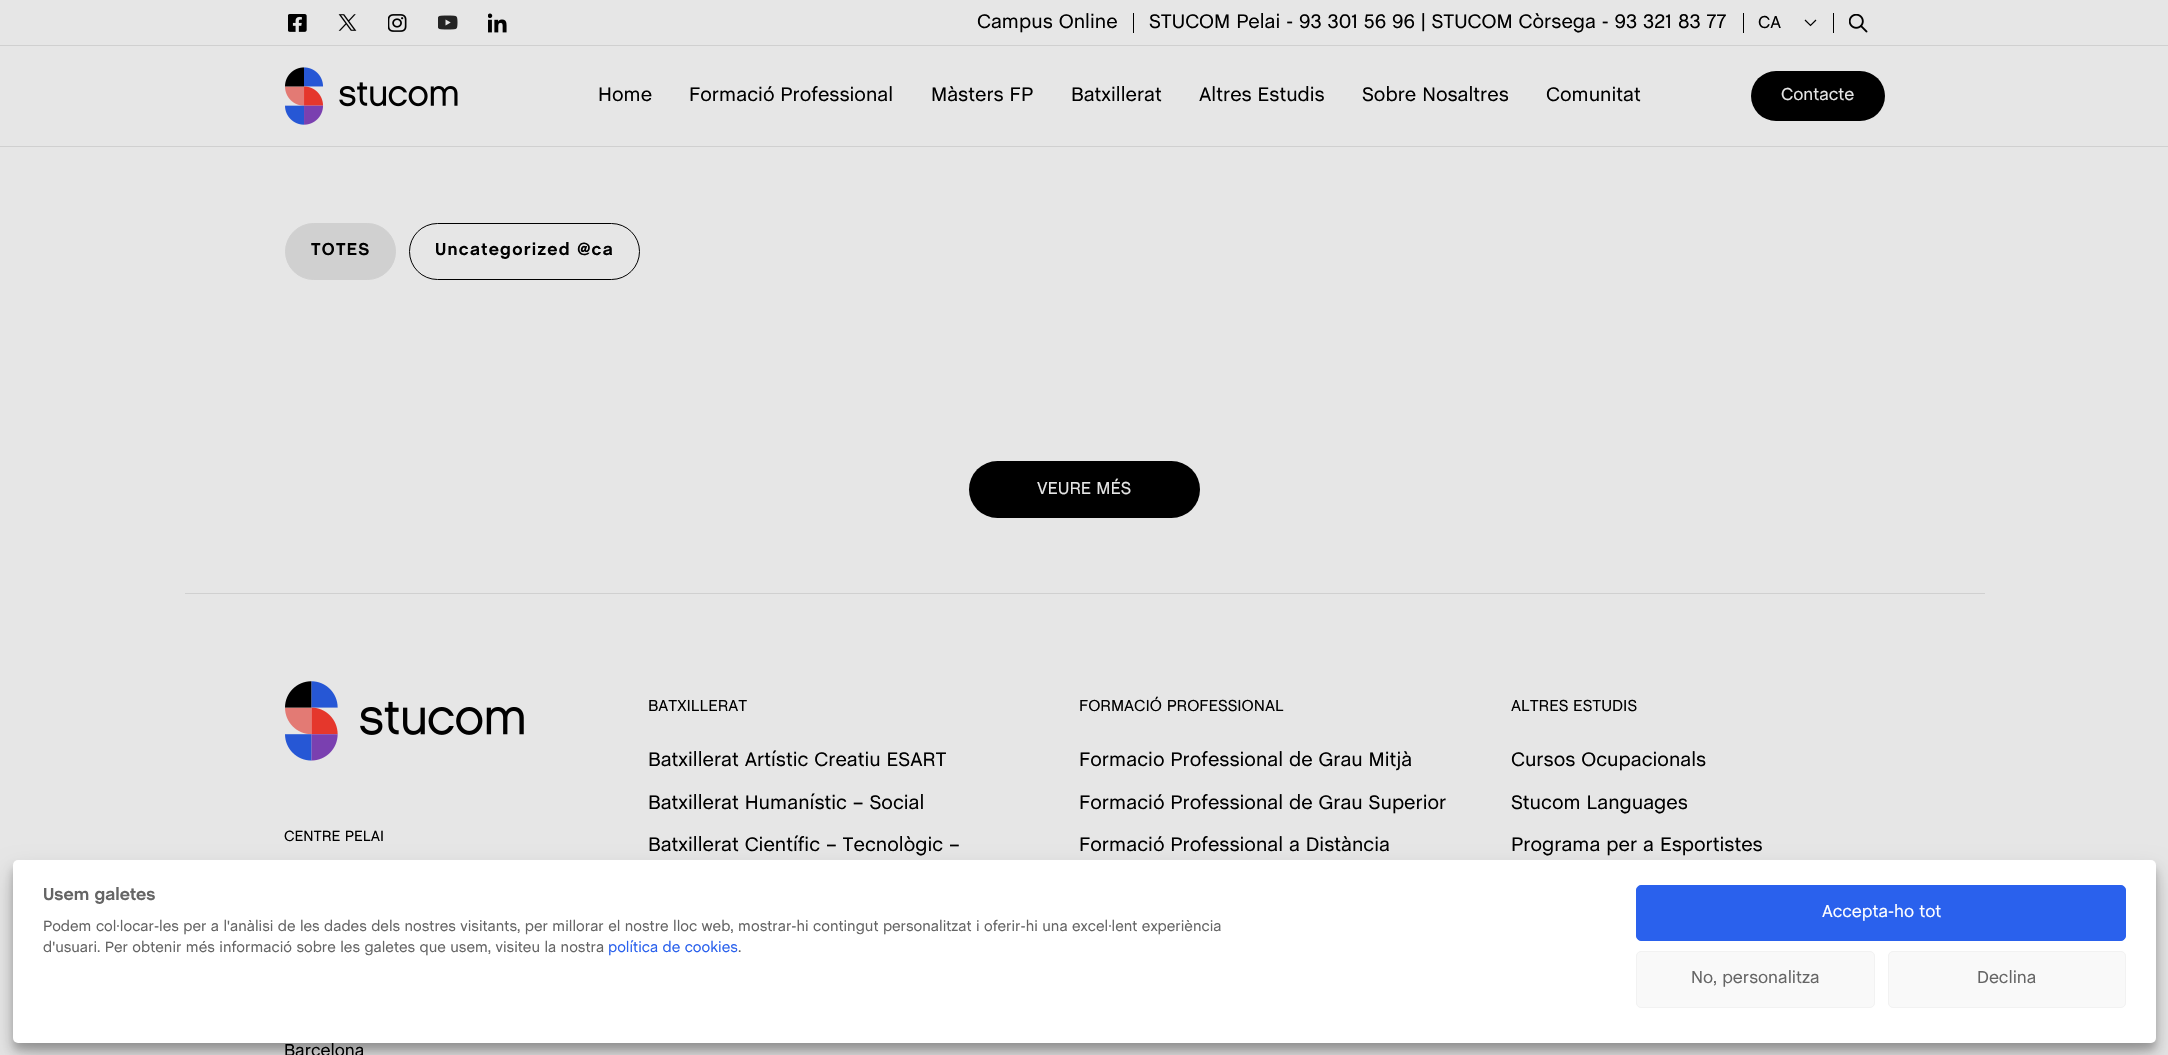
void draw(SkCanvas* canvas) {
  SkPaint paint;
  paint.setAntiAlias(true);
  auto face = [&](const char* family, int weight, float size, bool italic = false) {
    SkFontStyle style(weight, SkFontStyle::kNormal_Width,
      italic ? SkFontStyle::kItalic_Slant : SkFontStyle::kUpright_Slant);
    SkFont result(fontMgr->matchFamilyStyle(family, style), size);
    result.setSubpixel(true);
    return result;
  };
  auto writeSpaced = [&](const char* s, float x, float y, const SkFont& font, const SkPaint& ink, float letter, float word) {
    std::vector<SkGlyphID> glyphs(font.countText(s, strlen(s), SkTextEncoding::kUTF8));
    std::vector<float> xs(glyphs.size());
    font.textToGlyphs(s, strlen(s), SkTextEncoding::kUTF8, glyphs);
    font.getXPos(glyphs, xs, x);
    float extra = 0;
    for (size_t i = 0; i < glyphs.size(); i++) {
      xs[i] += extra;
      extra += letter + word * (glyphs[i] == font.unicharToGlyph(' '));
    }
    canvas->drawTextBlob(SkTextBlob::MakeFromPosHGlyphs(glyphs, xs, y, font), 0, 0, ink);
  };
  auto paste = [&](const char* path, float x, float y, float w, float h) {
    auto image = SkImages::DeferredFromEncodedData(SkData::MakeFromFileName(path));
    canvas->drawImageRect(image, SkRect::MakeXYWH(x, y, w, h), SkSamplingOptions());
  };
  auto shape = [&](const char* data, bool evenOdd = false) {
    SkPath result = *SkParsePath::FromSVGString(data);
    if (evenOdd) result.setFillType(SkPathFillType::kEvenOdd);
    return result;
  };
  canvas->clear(0xffe6e6e6);
  paint.setColor(0xffd0d0d0);
  canvas->drawRect(SkRect::MakeXYWH(0, 146, 2168, 1), paint);
  canvas->drawRect(SkRect::MakeXYWH(0, 45, 2168, 1), paint);
  paste("img/1.png", 288, 14, 19, 18);
  paste("img/2.png", 338, 14, 19, 17);
  paste("img/3.png", 388, 14, 19, 18);
  paste("img/4.png", 438, 15, 20, 15);
  paste("img/5.png", 488, 13, 19, 20);
  paint.setColor(0xff000000);
  canvas->drawRect(SkRect::MakeXYWH(1133, 13, 1, 20), paint);
  canvas->drawRect(SkRect::MakeXYWH(1743, 13, 1, 20), paint);
  paint.setStroke(true);
  paint.setStrokeWidth(1.2f);
  canvas->drawPath(shape("M1805 20L1810.5 25.5L1816 20"), paint);
  paint.setStroke(false);
  canvas->drawRect(SkRect::MakeXYWH(1833, 13, 1, 20), paint);
  paste("img/6.png", 1849, 14, 19, 19);
  paste("img/7.png", 285, 67, 173, 58);
  canvas->drawRoundRect(SkRect::MakeXYWH(1751, 71, 134, 50), 25, 25, paint);
  paint.setColor(0xffd0d0d0);
  canvas->drawRoundRect(SkRect::MakeXYWH(285.5f, 223.5f, 110, 56), 28, 28, paint);
  paint.setStroke(true);
  paint.setStrokeWidth(1);
  canvas->drawRoundRect(SkRect::MakeXYWH(285.5f, 223.5f, 110, 56), 28, 28, paint);
  paint.setColor(0xff000000);
  canvas->drawRoundRect(SkRect::MakeXYWH(409.5f, 223.5f, 230, 56), 28, 28, paint);
  paint.setStroke(false);
  canvas->drawRoundRect(SkRect::MakeXYWH(969, 461, 231, 57), 28.5f, 28.5f, paint);
  paint.setColor(0xffd0d0d0);
  canvas->drawRect(SkRect::MakeXYWH(185, 593, 1800, 1), paint);
  paste("img/8.png", 285, 681, 239, 80);
  paint.setColor(0x3b000000);
  paint.setMaskFilter(SkMaskFilter::MakeBlur(kNormal_SkBlurStyle, 4));
  canvas->drawRoundRect(SkRect::MakeXYWH(13, 868, 2143, 182), 5, 5, paint);
  paint.setMaskFilter(nullptr);
  paint.setColor(0x30000000);
  paint.setMaskFilter(SkMaskFilter::MakeBlur(kNormal_SkBlurStyle, 12.5f));
  canvas->drawRoundRect(SkRect::MakeXYWH(13, 873, 2143, 182), 5, 5, paint);
  paint.setMaskFilter(nullptr);
  paint.setColor(0xffffffff);
  canvas->drawRoundRect(SkRect::MakeXYWH(13, 860, 2143, 183), 5, 5, paint);
  paint.setColor(0xff2a61ed);
  canvas->drawRoundRect(SkRect::MakeXYWH(1636.5f, 885.5f, 489, 55), 4.5f, 4.5f, paint);
  paint.setStroke(true);
  canvas->drawRoundRect(SkRect::MakeXYWH(1636.5f, 885.5f, 489, 55), 4.5f, 4.5f, paint);
  paint.setStroke(false);
  paint.setColor(0xfff9f9f9);
  canvas->drawRoundRect(SkRect::MakeXYWH(1636.5f, 951.5f, 238, 56), 4.5f, 4.5f, paint);
  paint.setStroke(true);
  paint.setColor(0xfff2f2f2);
  canvas->drawRoundRect(SkRect::MakeXYWH(1636.5f, 951.5f, 238, 56), 4.5f, 4.5f, paint);
  paint.setStroke(false);
  paint.setColor(0xfff9f9f9);
  canvas->drawRoundRect(SkRect::MakeXYWH(1888.5f, 951.5f, 237, 56), 4.5f, 4.5f, paint);
  paint.setStroke(true);
  paint.setColor(0xfff2f2f2);
  canvas->drawRoundRect(SkRect::MakeXYWH(1888.5f, 951.5f, 237, 56), 4.5f, 4.5f, paint);
  auto f0 = face("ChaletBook", 400, 20);
  paint.setStroke(false);
  paint.setColor(0xff000000);
  canvas->drawString("Campus Online", 977, 28, f0, paint);
  canvas->drawString("STUCOM Pelai - 93 301 56 96 | STUCOM Còrsega - 93 321 83 77", 1149, 28, f0, paint);
  auto f1 = face("ChaletBook", 400, 17.5f);
  canvas->drawString("CA", 1758, 28, f1, paint);
  {
    const struct { const char* s; float x, y; } items[] = {
      {"Home", 598, 101},
      {"Formació Professional", 689, 101},
      {"Màsters FP", 931, 101},
      {"Batxillerat", 1071, 101},
      {"Altres Estudis", 1199, 101},
      {"Sobre Nosaltres", 1362, 101},
      {"Comunitat", 1546, 101},
    };
    for (auto [s, x, y] : items) {
      canvas->drawString(s, x, y, f0, paint);
    }
  }
  paint.setColor(0xffe6e6e6);
  canvas->drawString("Contacte", 1781, 100, f1, paint);
  auto f2 = face("ChaletBook", 700, 17.5f);
  paint.setColor(0xff000000);
  writeSpaced("TOTES", 311, 255, f2, paint, 1.25f, 0);
  writeSpaced("Uncategorized @ca", 435, 255, f2, paint, 1.25f, 0);
  paint.setColor(0xffe6e6e6);
  canvas->drawString("VEURE MÉS", 1037, 494, f1, paint);
  auto f3 = face("ChaletBook", 400, 16.25f);
  paint.setColor(0xff000000);
  canvas->drawString("BATXILLERAT", 648, 711, f3, paint);
  {
    const struct { const char* s; float x, y; } items[] = {
      {"Batxillerat Artístic Creatiu ESART", 648, 766},
      {"Batxillerat Humanístic – Social", 648, 809},
      {"Batxillerat Científic – Tecnològic –", 648, 851},
    };
    for (auto [s, x, y] : items) {
      canvas->drawString(s, x, y, f0, paint);
    }
  }
  canvas->drawString("FORMACIÓ PROFESSIONAL", 1079, 711, f3, paint);
  {
    const struct { const char* s; float x, y; } items[] = {
      {"Formacio Professional de Grau Mitjà", 1079, 766},
      {"Formació Professional de Grau Superior", 1079, 809},
      {"Formació Professional a Distància", 1079, 851},
    };
    for (auto [s, x, y] : items) {
      canvas->drawString(s, x, y, f0, paint);
    }
  }
  canvas->drawString("ALTRES ESTUDIS", 1511, 711, f3, paint);
  {
    const struct { const char* s; float x, y; } items[] = {
      {"Cursos Ocupacionals", 1511, 766},
      {"Stucom Languages", 1511, 809},
      {"Programa per a Esportistes", 1511, 851},
    };
    for (auto [s, x, y] : items) {
      canvas->drawString(s, x, y, f0, paint);
    }
  }
  auto f4 = face("ChaletBook", 400, 15);
  canvas->drawString("CENTRE PELAI", 284, 841, f4, paint);
  canvas->drawString("Barcelona", 284, 1056, f1, paint);
  paint.setColor(0xff656565);
  canvas->drawString("Usem galetes", 43, 900, f2, paint);
  canvas->drawString("Podem col·locar-les per a l'anàlisi de les dades dels nostres visitants, per millorar el nostre lloc web, mostrar-hi contingut personalitzat i oferir-hi una excel·lent experiència", 43, 931, f4, paint);
  canvas->drawString("d'usuari. Per obtenir més informació sobre les galetes que usem, visiteu la nostra", 43, 952, f4, paint);
  paint.setColor(0xff2a61ed);
  canvas->drawString("política de cookies", 608, 952, f4, paint);
  paint.setColor(0xff656565);
  canvas->drawString(".", 738, 952, f4, paint);
  paint.setColor(0xffffffff);
  canvas->drawString("Accepta-ho tot", 1822, 917, f1, paint);
  paint.setColor(0xff656565);
  canvas->drawString("No, personalitza", 1691, 983, f1, paint);
  canvas->drawString("Declina", 1977, 983, f1, paint);
}
